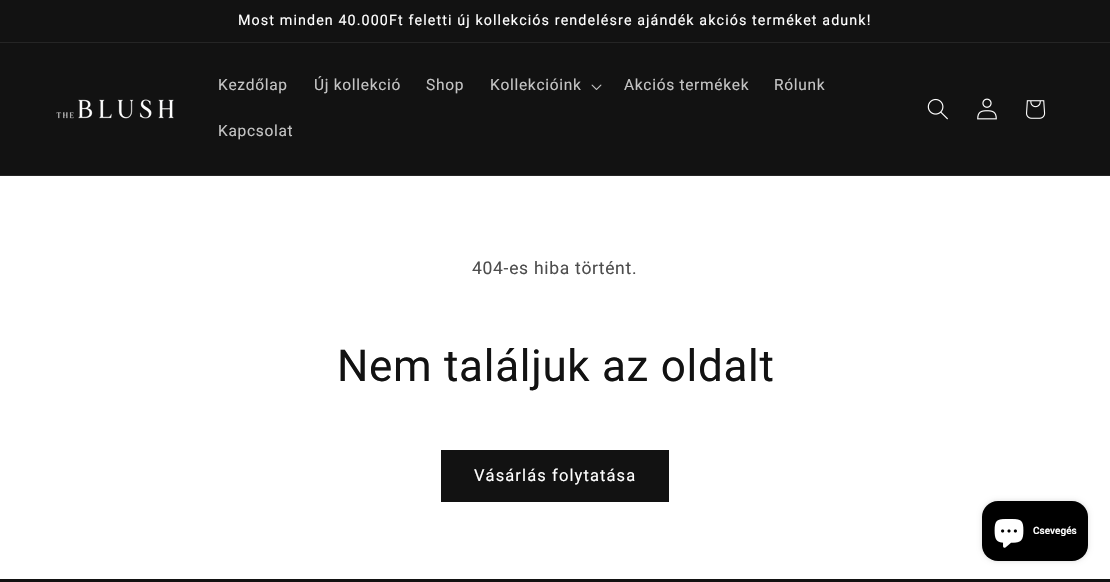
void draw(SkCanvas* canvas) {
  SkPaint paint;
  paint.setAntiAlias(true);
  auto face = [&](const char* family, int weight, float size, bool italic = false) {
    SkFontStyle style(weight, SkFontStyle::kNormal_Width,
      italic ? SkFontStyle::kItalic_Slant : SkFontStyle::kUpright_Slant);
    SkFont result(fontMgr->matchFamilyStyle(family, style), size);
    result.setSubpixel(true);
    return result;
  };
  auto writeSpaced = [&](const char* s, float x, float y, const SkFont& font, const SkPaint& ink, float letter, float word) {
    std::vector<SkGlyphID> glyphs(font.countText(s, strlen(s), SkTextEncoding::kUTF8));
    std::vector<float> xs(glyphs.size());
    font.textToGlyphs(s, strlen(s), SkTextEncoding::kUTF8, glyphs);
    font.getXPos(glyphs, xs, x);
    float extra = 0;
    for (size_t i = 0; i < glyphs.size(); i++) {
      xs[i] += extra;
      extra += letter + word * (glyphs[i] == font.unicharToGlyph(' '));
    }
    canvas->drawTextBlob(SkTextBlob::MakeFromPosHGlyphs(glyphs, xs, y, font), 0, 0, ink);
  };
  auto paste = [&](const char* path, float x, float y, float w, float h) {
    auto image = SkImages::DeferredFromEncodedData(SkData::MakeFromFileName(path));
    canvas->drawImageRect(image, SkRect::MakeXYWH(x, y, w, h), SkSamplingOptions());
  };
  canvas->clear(0xffffffff);
  {
    const struct { float x, y, w, h; SkColor color; } items[] = {
      {0, 0, 1110, 42, 0xff121212},
      {0, 42, 1110, 1, 0xff252525},
      {0, 43, 1110, 132, 0xff121212},
      {0, 175, 1110, 1, 0xff252525},
    };
    for (auto [x, y, w, h, color] : items) {
      paint.setColor(color);
      canvas->drawRect(SkRect::MakeXYWH(x, y, w, h), paint);
    }
  }
  paste("img/1.png", 56, 99, 118, 20);
  paste("img/2.png", 591, 84, 11, 6);
  paste("img/3.png", 927, 98, 21, 22);
  paste("img/4.png", 977, 98, 20, 22);
  paste("img/5.png", 1026, 100, 20, 19);
  paint.setColor(0xff121212);
  canvas->drawRect(SkRect::MakeXYWH(441, 450, 228, 52), paint);
  paint.setColor(0x26000000);
  paint.setMaskFilter(SkMaskFilter::MakeBlur(kNormal_SkBlurStyle, 2.5f));
  canvas->drawRoundRect(SkRect::MakeXYWH(982, 501, 106, 60), 16, 16, paint);
  paint.setMaskFilter(nullptr);
  paint.setColor(0xff000000);
  canvas->drawRoundRect(SkRect::MakeXYWH(982, 501, 106, 60), 16, 16, paint);
  paste("img/6.png", 994, 519, 30, 29);
  paint.setColor(0xff121212);
  canvas->drawRect(SkRect::MakeXYWH(0, 579, 1110, 3), paint);
  auto f0 = face("Roboto", 400, 14.3f);
  paint.setColor(0xffffffff);
  writeSpaced("Most minden 40.000Ft feletti új kollekciós rendelésre ajándék akciós terméket adunk!", 238, 25, f0, paint, 1.1f, 0);
  auto f1 = face("Roboto", 400, 15.5f);
  paint.setColor(0xffc4c4c4);
  {
    const struct { const char* s; float x, y; } items[] = {
      {"Kezdőlap", 218, 90},
      {"Új kollekció", 314, 90},
      {"Shop", 426, 90},
      {"Kollekcióink", 490, 90},
      {"Akciós termékek", 624, 90},
      {"Rólunk", 774, 90},
      {"Kapcsolat", 218, 136},
    };
    for (auto [s, x, y] : items) {
      writeSpaced(s, x, y, f1, paint, 0.7f, 0);
    }
  }
  auto f2 = face("Roboto", 400, 17.5f);
  paint.setColor(0xff4d4d4d);
  writeSpaced("404-es hiba történt.", 472, 274, f2, paint, 0.7f, 0);
  auto f3 = face("Roboto", 400, 44);
  paint.setColor(0xff121212);
  writeSpaced("Nem találjuk az oldalt", 337, 381, f3, paint, 0.7f, 0);
  auto f4 = face("Roboto", 400, 16.5f);
  paint.setColor(0xffffffff);
  writeSpaced("Vásárlás folytatása", 474, 481, f4, paint, 1.1f, 0);
  auto f5 = face("Roboto", 600, 10);
  canvas->drawString("Csevegés", 1033, 534, f5, paint);
}
